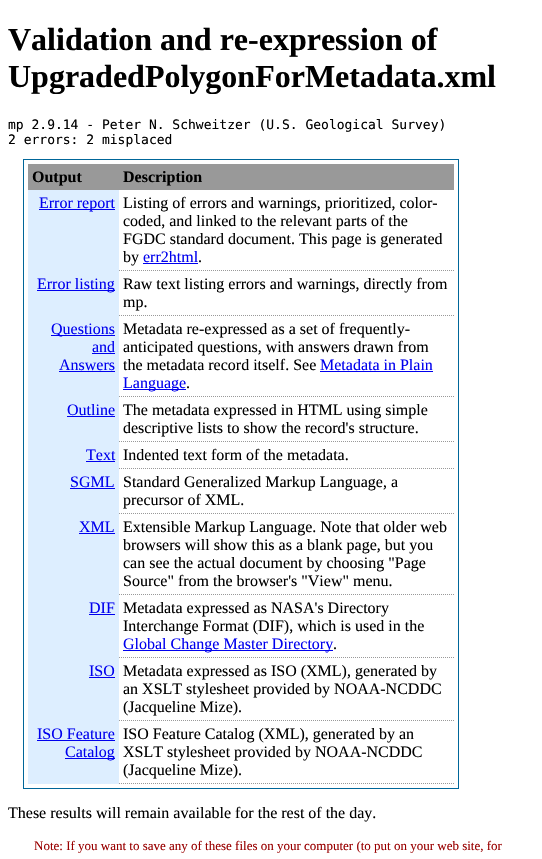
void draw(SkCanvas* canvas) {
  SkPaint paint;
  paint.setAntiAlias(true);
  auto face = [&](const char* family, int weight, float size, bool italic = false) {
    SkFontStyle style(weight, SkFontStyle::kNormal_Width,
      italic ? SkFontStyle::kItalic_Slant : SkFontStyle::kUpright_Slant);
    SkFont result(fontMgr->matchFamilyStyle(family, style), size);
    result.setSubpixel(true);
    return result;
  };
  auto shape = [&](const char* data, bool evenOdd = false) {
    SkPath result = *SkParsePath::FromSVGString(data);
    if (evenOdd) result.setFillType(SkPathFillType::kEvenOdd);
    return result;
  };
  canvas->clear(0xffffffff);
  {
    const struct { float x, y, w, h; SkColor color; } items[] = {
      {28, 164, 426, 26, 0xff999999},
      {28, 190, 91, 594, 0xffddeeff},
      {39, 209, 76, 1, 0xff0000ee},
    };
    for (auto [x, y, w, h, color] : items) {
      paint.setColor(color);
      canvas->drawRect(SkRect::MakeXYWH(x, y, w, h), paint);
    }
  }
  paint.setStroke(true);
  paint.setStrokeWidth(1);
  paint.setColor(0xff999999);
  paint.setPathEffect(SkDashPathEffect::Make({{1, 1}}, 0));
  canvas->drawPath(shape("M119 270.5H454"), paint);
  paint.setPathEffect(nullptr);
  paint.setStroke(false);
  paint.setColor(0xff0000ee);
  canvas->drawRect(SkRect::MakeXYWH(143, 263, 55, 1), paint);
  canvas->drawRect(SkRect::MakeXYWH(37, 290, 78, 1), paint);
  paint.setStroke(true);
  paint.setColor(0xff999999);
  paint.setPathEffect(SkDashPathEffect::Make({{1, 1}}, 0));
  canvas->drawPath(shape("M119 315.5H454"), paint);
  paint.setPathEffect(nullptr);
  paint.setStroke(false);
  {
    const struct { float x, y, w, h; SkColor color; } items[] = {
      {51, 335, 64, 1, 0xff0000ee},
      {92, 353, 23, 1, 0xff0000ee},
      {59, 371, 56, 1, 0xff0000ee},
    };
    for (auto [x, y, w, h, color] : items) {
      paint.setColor(color);
      canvas->drawRect(SkRect::MakeXYWH(x, y, w, h), paint);
    }
  }
  paint.setStroke(true);
  paint.setColor(0xff999999);
  paint.setPathEffect(SkDashPathEffect::Make({{1, 1}}, 0));
  canvas->drawPath(shape("M119 396.5H454"), paint);
  paint.setPathEffect(nullptr);
  paint.setStroke(false);
  {
    const struct { float x, y, w, h; SkColor color; } items[] = {
      {320, 371, 113, 1, 0xff0000ee},
      {123, 389, 63, 1, 0xff0000ee},
      {67, 416, 48, 1, 0xff0000ee},
    };
    for (auto [x, y, w, h, color] : items) {
      paint.setColor(color);
      canvas->drawRect(SkRect::MakeXYWH(x, y, w, h), paint);
    }
  }
  paint.setStroke(true);
  paint.setColor(0xff999999);
  paint.setPathEffect(SkDashPathEffect::Make({{1, 1}}, 0));
  canvas->drawPath(shape("M119 441.5H454"), paint);
  paint.setPathEffect(nullptr);
  paint.setStroke(false);
  paint.setColor(0xff0000ee);
  canvas->drawRect(SkRect::MakeXYWH(86, 461, 29, 1), paint);
  paint.setStroke(true);
  paint.setColor(0xff999999);
  paint.setPathEffect(SkDashPathEffect::Make({{1, 1}}, 0));
  canvas->drawPath(shape("M119 468.5H454"), paint);
  paint.setPathEffect(nullptr);
  paint.setStroke(false);
  paint.setColor(0xff0000ee);
  canvas->drawRect(SkRect::MakeXYWH(70, 488, 45, 1), paint);
  paint.setStroke(true);
  paint.setColor(0xff999999);
  paint.setPathEffect(SkDashPathEffect::Make({{1, 1}}, 0));
  canvas->drawPath(shape("M119 513.5H454"), paint);
  paint.setPathEffect(nullptr);
  paint.setStroke(false);
  paint.setColor(0xff0000ee);
  canvas->drawRect(SkRect::MakeXYWH(79, 533, 36, 1), paint);
  paint.setStroke(true);
  paint.setColor(0xff999999);
  paint.setPathEffect(SkDashPathEffect::Make({{1, 1}}, 0));
  canvas->drawPath(shape("M119 594.5H454"), paint);
  paint.setPathEffect(nullptr);
  paint.setStroke(false);
  paint.setColor(0xff0000ee);
  canvas->drawRect(SkRect::MakeXYWH(89, 614, 26, 1), paint);
  paint.setStroke(true);
  paint.setColor(0xff999999);
  paint.setPathEffect(SkDashPathEffect::Make({{1, 1}}, 0));
  canvas->drawPath(shape("M119 657.5H454"), paint);
  paint.setPathEffect(nullptr);
  paint.setStroke(false);
  paint.setColor(0xff0000ee);
  canvas->drawRect(SkRect::MakeXYWH(123, 650, 210, 1), paint);
  canvas->drawRect(SkRect::MakeXYWH(89, 677, 26, 1), paint);
  paint.setStroke(true);
  paint.setColor(0xff999999);
  paint.setPathEffect(SkDashPathEffect::Make({{1, 1}}, 0));
  canvas->drawPath(shape("M119 720.5H454"), paint);
  paint.setPathEffect(nullptr);
  paint.setStroke(false);
  paint.setColor(0xff0000ee);
  canvas->drawRect(SkRect::MakeXYWH(37, 740, 78, 1), paint);
  canvas->drawRect(SkRect::MakeXYWH(65, 758, 50, 1), paint);
  paint.setStroke(true);
  paint.setColor(0xff999999);
  paint.setPathEffect(SkDashPathEffect::Make({{1, 1}}, 0));
  canvas->drawPath(shape("M119 783.5H454"), paint);
  paint.setPathEffect(nullptr);
  paint.setColor(0xff006699);
  canvas->drawRect(SkRect::MakeXYWH(23.5f, 159.5f, 435, 629), paint);
  auto f0 = face("Liberation Serif", 700, 32);
  paint.setStroke(false);
  paint.setColor(0xff000000);
  canvas->drawString("Validation and re-expression of", 8, 50, f0, paint);
  canvas->drawString("UpgradedPolygonForMetadata.xml", 8, 87, f0, paint);
  auto f1 = face("DejaVu Sans Mono", 400, 13);
  canvas->drawString("mp 2.9.14 - Peter N. Schweitzer (U.S. Geological Survey)", 8, 129, f1, paint);
  canvas->drawString("2 errors: 2 misplaced", 8, 144, f1, paint);
  auto f2 = face("Liberation Serif", 700, 16);
  canvas->drawString("Output", 32, 182, f2, paint);
  canvas->drawString("Description", 123, 182, f2, paint);
  auto f3 = face("Liberation Serif", 400, 16);
  paint.setColor(0xff0000ee);
  canvas->drawString("Error report", 39, 208, f3, paint);
  paint.setColor(0xff000000);
  {
    const struct { const char* s; float x, y; } items[] = {
      {"Listing of errors and warnings, prioritized, color-", 123, 208},
      {"coded, and linked to the relevant parts of the", 123, 226},
      {"FGDC standard document. This page is generated", 123, 244},
      {"by", 123, 262},
    };
    for (auto [s, x, y] : items) {
      canvas->drawString(s, x, y, f3, paint);
    }
  }
  paint.setColor(0xff0000ee);
  canvas->drawString("err2html", 143, 262, f3, paint);
  paint.setColor(0xff000000);
  canvas->drawString(".", 198, 262, f3, paint);
  paint.setColor(0xff0000ee);
  canvas->drawString("Error listing", 37, 289, f3, paint);
  paint.setColor(0xff000000);
  canvas->drawString("Raw text listing errors and warnings, directly from", 123, 289, f3, paint);
  canvas->drawString("mp.", 123, 307, f3, paint);
  paint.setColor(0xff0000ee);
  {
    const struct { const char* s; float x, y; } items[] = {
      {"Questions", 51, 334},
      {"and", 92, 352},
      {"Answers", 59, 370},
    };
    for (auto [s, x, y] : items) {
      canvas->drawString(s, x, y, f3, paint);
    }
  }
  paint.setColor(0xff000000);
  {
    const struct { const char* s; float x, y; } items[] = {
      {"Metadata re-expressed as a set of frequently-", 123, 334},
      {"anticipated questions, with answers drawn from", 123, 352},
      {"the metadata record itself. See", 123, 370},
    };
    for (auto [s, x, y] : items) {
      canvas->drawString(s, x, y, f3, paint);
    }
  }
  paint.setColor(0xff0000ee);
  canvas->drawString("Metadata in Plain", 320, 370, f3, paint);
  canvas->drawString("Language", 123, 388, f3, paint);
  paint.setColor(0xff000000);
  canvas->drawString(".", 186, 388, f3, paint);
  paint.setColor(0xff0000ee);
  canvas->drawString("Outline", 67, 415, f3, paint);
  paint.setColor(0xff000000);
  canvas->drawString("The metadata expressed in HTML using simple", 123, 415, f3, paint);
  canvas->drawString("descriptive lists to show the record's structure.", 123, 433, f3, paint);
  paint.setColor(0xff0000ee);
  canvas->drawString("Text", 86, 460, f3, paint);
  paint.setColor(0xff000000);
  canvas->drawString("Indented text form of the metadata.", 123, 460, f3, paint);
  paint.setColor(0xff0000ee);
  canvas->drawString("SGML", 70, 487, f3, paint);
  paint.setColor(0xff000000);
  canvas->drawString("Standard Generalized Markup Language, a", 123, 487, f3, paint);
  canvas->drawString("precursor of XML.", 123, 505, f3, paint);
  paint.setColor(0xff0000ee);
  canvas->drawString("XML", 79, 532, f3, paint);
  paint.setColor(0xff000000);
  {
    const struct { const char* s; float x, y; } items[] = {
      {"Extensible Markup Language. Note that older web", 123, 532},
      {"browsers will show this as a blank page, but you", 123, 550},
      {"can see the actual document by choosing \"Page", 123, 568},
      {"Source\" from the browser's \"View\" menu.", 123, 586},
    };
    for (auto [s, x, y] : items) {
      canvas->drawString(s, x, y, f3, paint);
    }
  }
  paint.setColor(0xff0000ee);
  canvas->drawString("DIF", 89, 613, f3, paint);
  paint.setColor(0xff000000);
  canvas->drawString("Metadata expressed as NASA's Directory", 123, 613, f3, paint);
  canvas->drawString("Interchange Format (DIF), which is used in the", 123, 631, f3, paint);
  paint.setColor(0xff0000ee);
  canvas->drawString("Global Change Master Directory", 123, 649, f3, paint);
  paint.setColor(0xff000000);
  canvas->drawString(".", 333, 649, f3, paint);
  paint.setColor(0xff0000ee);
  canvas->drawString("ISO", 89, 676, f3, paint);
  paint.setColor(0xff000000);
  {
    const struct { const char* s; float x, y; } items[] = {
      {"Metadata expressed as ISO (XML), generated by", 123, 676},
      {"an XSLT stylesheet provided by NOAA-NCDDC", 123, 694},
      {"(Jacqueline Mize).", 123, 712},
    };
    for (auto [s, x, y] : items) {
      canvas->drawString(s, x, y, f3, paint);
    }
  }
  paint.setColor(0xff0000ee);
  canvas->drawString("ISO Feature", 37, 739, f3, paint);
  canvas->drawString("Catalog", 65, 757, f3, paint);
  paint.setColor(0xff000000);
  {
    const struct { const char* s; float x, y; } items[] = {
      {"ISO Feature Catalog (XML), generated by an", 123, 739},
      {"XSLT stylesheet provided by NOAA-NCDDC", 123, 757},
      {"(Jacqueline Mize).", 123, 775},
      {"These results will remain available for the rest of the day.", 8, 818},
    };
    for (auto [s, x, y] : items) {
      canvas->drawString(s, x, y, f3, paint);
    }
  }
  auto f4 = face("Liberation Serif", 400, 13);
  paint.setColor(0xff990000);
  canvas->drawString("Note: If you want to save any of these files on your computer (to put on your web site, for", 34, 850, f4, paint);
}
